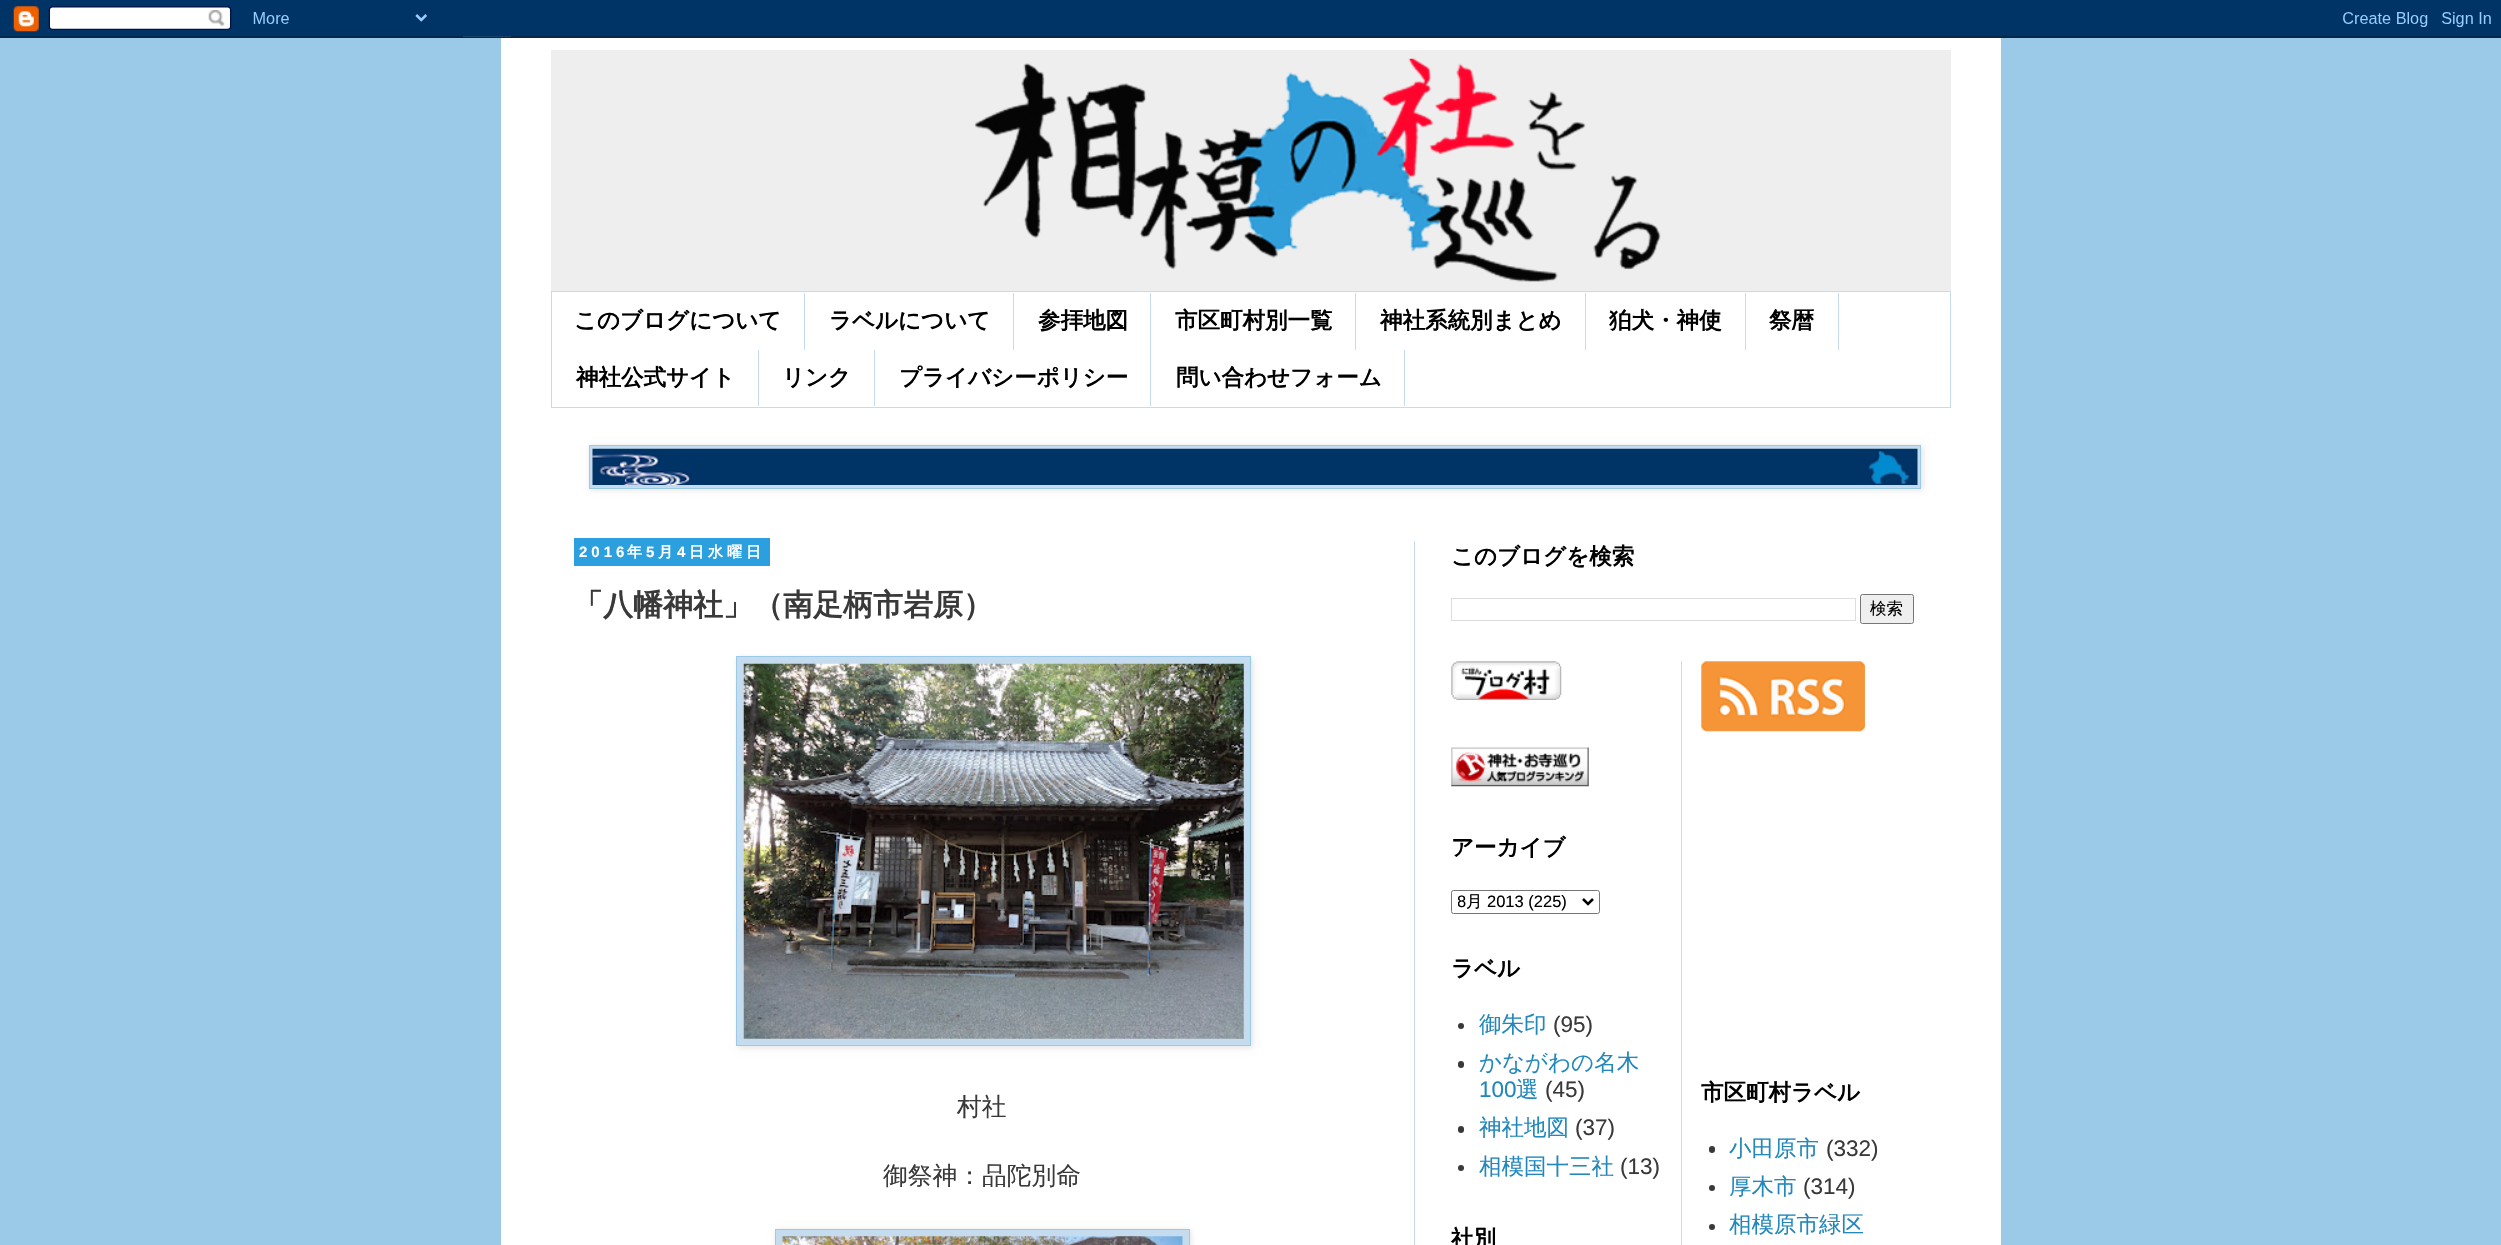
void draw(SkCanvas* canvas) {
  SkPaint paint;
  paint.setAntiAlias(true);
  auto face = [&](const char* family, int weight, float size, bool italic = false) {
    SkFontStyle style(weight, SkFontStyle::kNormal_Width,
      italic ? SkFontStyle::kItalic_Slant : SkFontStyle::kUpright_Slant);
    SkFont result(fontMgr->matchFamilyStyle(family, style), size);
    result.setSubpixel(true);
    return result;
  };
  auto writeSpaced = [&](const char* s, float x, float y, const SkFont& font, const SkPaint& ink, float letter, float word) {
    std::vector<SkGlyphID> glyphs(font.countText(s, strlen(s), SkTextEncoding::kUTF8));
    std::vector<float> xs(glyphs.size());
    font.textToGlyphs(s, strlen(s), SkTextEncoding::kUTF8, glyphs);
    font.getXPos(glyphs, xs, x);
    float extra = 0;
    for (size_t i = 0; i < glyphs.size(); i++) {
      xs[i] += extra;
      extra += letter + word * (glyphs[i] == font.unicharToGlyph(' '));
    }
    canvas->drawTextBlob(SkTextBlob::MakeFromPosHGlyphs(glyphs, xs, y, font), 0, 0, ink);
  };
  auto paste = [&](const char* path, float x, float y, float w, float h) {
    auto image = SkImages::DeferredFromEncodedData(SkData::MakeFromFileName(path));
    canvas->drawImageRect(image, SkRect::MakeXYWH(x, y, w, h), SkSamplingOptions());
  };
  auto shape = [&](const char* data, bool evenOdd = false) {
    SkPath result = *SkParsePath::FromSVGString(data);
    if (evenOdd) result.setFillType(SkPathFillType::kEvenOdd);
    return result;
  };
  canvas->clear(0xff9bcae9);
  paste("img/1.png", 0, 0, 2501, 38);
  paint.setColor(0xffffffff);
  canvas->drawRect(SkRect::MakeXYWH(501, 38, 1500, 1207), paint);
  paint.setColor(0xffeeeeee);
  canvas->drawRect(SkRect::MakeXYWH(551, 50, 1400, 241), paint);
  paste("img/2.png", 974, 58, 687, 224);
  paint.setStroke(true);
  paint.setStrokeWidth(1);
  paint.setColor(0xffc4dcee);
  canvas->drawRect(SkRect::MakeXYWH(551.5f, 291.5f, 1399, 116), paint);
  paint.setStroke(false);
  {
    const struct { float x, y, w, h; SkColor color; } items[] = {
      {804, 293, 1, 57, 0xffc4dcee},
      {1013, 293, 1, 57, 0xffc4dcee},
      {1150, 293, 1, 113, 0xffc4dcee},
      {1355, 293, 1, 57, 0xffc4dcee},
      {1585, 293, 1, 57, 0xffc4dcee},
      {1745, 293, 1, 57, 0xffc4dcee},
      {1838, 293, 1, 57, 0xffc4dcee},
      {758, 350, 1, 56, 0xffc4dcee},
      {874, 350, 1, 56, 0xffc4dcee},
      {1404, 350, 1, 56, 0xffc4dcee},
    };
    for (auto [x, y, w, h, color] : items) {
      paint.setColor(color);
      canvas->drawRect(SkRect::MakeXYWH(x, y, w, h), paint);
    }
  }
  paint.setColor(0x1a000000);
  paint.setMaskFilter(SkMaskFilter::MakeBlur(kNormal_SkBlurStyle, 3));
  canvas->drawRect(SkRect::MakeXYWH(590, 446, 1333, 44), paint);
  paint.setMaskFilter(nullptr);
  paint.setColor(0xffc4dcee);
  canvas->drawRect(SkRect::MakeXYWH(589.5f, 445.5f, 1331, 43), paint);
  paint.setStroke(true);
  paint.setColor(0xff9bcae9);
  canvas->drawRect(SkRect::MakeXYWH(589.5f, 445.5f, 1331, 43), paint);
  paste("img/3.png", 592, 448, 1326, 37);
  paint.setStroke(false);
  paint.setColor(0xffc4dcee);
  canvas->drawRect(SkRect::MakeXYWH(1414, 541, 1, 704), paint);
  paint.setColor(0xff2ca0df);
  canvas->drawRect(SkRect::MakeXYWH(574, 538, 196, 28), paint);
  paint.setColor(0x1a000000);
  paint.setMaskFilter(SkMaskFilter::MakeBlur(kNormal_SkBlurStyle, 3));
  canvas->drawRect(SkRect::MakeXYWH(738, 658, 515, 390), paint);
  paint.setMaskFilter(nullptr);
  paint.setColor(0xffc4dcee);
  canvas->drawRect(SkRect::MakeXYWH(736.5f, 656.5f, 514, 389), paint);
  paint.setStroke(true);
  paint.setColor(0xff9bcae9);
  canvas->drawRect(SkRect::MakeXYWH(736.5f, 656.5f, 514, 389), paint);
  paste("img/4.png", 743, 663, 501, 376);
  paint.setStroke(false);
  paint.setColor(0x1a000000);
  paint.setMaskFilter(SkMaskFilter::MakeBlur(kNormal_SkBlurStyle, 3));
  canvas->drawRect(SkRect::MakeXYWH(776, 1230, 415, 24), paint);
  paint.setMaskFilter(nullptr);
  paint.setColor(0xffc4dcee);
  canvas->drawRect(SkRect::MakeXYWH(775.5f, 1229.5f, 414, 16), paint);
  paint.setStroke(true);
  paint.setColor(0xff9bcae9);
  canvas->drawRect(SkRect::MakeXYWH(775.5f, 1229.5f, 414, 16), paint);
  paste("img/5.png", 782, 1236, 401, 9);
  paint.setColor(0xffdddddd);
  canvas->drawRect(SkRect::MakeXYWH(1451.5f, 598.5f, 404, 22), paint);
  paint.setStroke(false);
  paint.setColor(0xffefefef);
  canvas->drawRoundRect(SkRect::MakeXYWH(1860.5f, 594.5f, 53, 29), 2, 2, paint);
  paint.setStroke(true);
  paint.setColor(0xff767676);
  canvas->drawRoundRect(SkRect::MakeXYWH(1860.5f, 594.5f, 53, 29), 2, 2, paint);
  paste("img/6.png", 1451, 661, 111, 39);
  paste("img/7.png", 1451, 747, 138, 40);
  canvas->drawRoundRect(SkRect::MakeXYWH(1451.5f, 890.5f, 148, 23), 2, 2, paint);
  paint.setStrokeWidth(2.5f);
  paint.setColor(0xff000000);
  canvas->drawPath(shape("M1583 899L1588 904L1593 899"), paint);
  paint.setStroke(false);
  paint.setColor(0xff393939);
  canvas->drawCircle(1461, 1026, 3, paint);
  canvas->drawRoundRect(SkRect::MakeXYWH(1458, 1061, 6, 7), 3, 3, paint);
  canvas->drawRoundRect(SkRect::MakeXYWH(1458, 1126, 6, 7), 3, 3, paint);
  canvas->drawCircle(1461, 1168, 3, paint);
  paint.setColor(0xffc4dcee);
  canvas->drawRect(SkRect::MakeXYWH(1681, 661, 1, 584), paint);
  paste("img/8.png", 1701, 661, 164, 71);
  paint.setColor(0xff393939);
  canvas->drawRoundRect(SkRect::MakeXYWH(1709, 1146, 6, 7), 3, 3, paint);
  canvas->drawCircle(1712, 1188, 3, paint);
  canvas->drawCircle(1712, 1227, 3, paint);
  auto f0 = face("WenQuanYi Zen Hei", 700, 22.5f);
  paint.setColor(0xff000000);
  {
    const struct { const char* s; float x, y; } items[] = {
      {"このブログについて", 574, 328},
      {"ラベルについて", 829, 328},
      {"参拝地図", 1038, 328},
      {"市区町村別一覧", 1175, 328},
      {"神社系統別まとめ", 1380, 328},
      {"狛犬・神使", 1609, 328},
      {"祭暦", 1769, 328},
      {"神社公式サイト", 576, 385},
      {"リンク", 782, 385},
      {"プライバシーポリシー", 899, 385},
      {"問い合わせフォーム", 1176, 385},
    };
    for (auto [s, x, y] : items) {
      canvas->drawString(s, x, y, f0, paint);
    }
  }
  auto f1 = face("Liberation Sans", 700, 15);
  paint.setColor(0xffffffff);
  writeSpaced("2016", 579, 557, f1, paint, 4, 0);
  auto f2 = face("WenQuanYi Zen Hei", 700, 15);
  writeSpaced("年", 627, 557, f2, paint, 4, 0);
  writeSpaced("5", 646, 557, f1, paint, 4, 0);
  writeSpaced("月", 658, 557, f2, paint, 4, 0);
  writeSpaced("4", 677, 557, f1, paint, 4, 0);
  writeSpaced("日水曜日", 689, 557, f2, paint, 4, 0);
  auto f3 = face("WenQuanYi Zen Hei", 700, 30);
  paint.setColor(0xff393939);
  canvas->drawString("「八幡神社」（南足柄市岩原）", 573, 615, f3, paint);
  auto f4 = face("WenQuanYi Zen Hei", 500, 24.75f);
  canvas->drawString("村社", 957, 1115, f4, paint);
  canvas->drawString("御祭神：品陀別命", 883, 1184, f4, paint);
  paint.setColor(0xff000000);
  canvas->drawString("このブログを検索", 1451, 564, f0, paint);
  auto f5 = face("WenQuanYi Zen Hei", 500, 16.5f);
  canvas->drawString("検索", 1870, 614, f5, paint);
  canvas->drawString("アーカイブ", 1451, 855, f0, paint);
  canvas->save();
  canvas->clipRect(SkRect::MakeXYWH(1458, 891, 121, 22));
  auto f6 = face("Liberation Sans", 400, 16.5f);
  canvas->drawString("8", 1457, 907, f6, paint);
  canvas->restore();
  canvas->drawString("月", 1466, 907, f5, paint);
  canvas->drawString("2013 (225)", 1487, 907, f6, paint);
  canvas->drawString("ラベル", 1451, 976, f0, paint);
  auto f7 = face("WenQuanYi Zen Hei", 500, 22.5f);
  paint.setColor(0xff2288bb);
  canvas->drawString("御朱印", 1479, 1032, f7, paint);
  auto f8 = face("Liberation Sans", 400, 22.5f);
  paint.setColor(0xff393939);
  canvas->drawString("(95)", 1553, 1032, f8, paint);
  paint.setColor(0xff2288bb);
  canvas->drawString("かながわの名木", 1479, 1070, f7, paint);
  canvas->drawString("100", 1479, 1097, f8, paint);
  canvas->drawString("選", 1516, 1097, f7, paint);
  paint.setColor(0xff393939);
  canvas->drawString("(45)", 1545, 1097, f8, paint);
  paint.setColor(0xff2288bb);
  canvas->drawString("神社地図", 1479, 1135, f7, paint);
  paint.setColor(0xff393939);
  canvas->drawString("(37)", 1575, 1135, f8, paint);
  paint.setColor(0xff2288bb);
  canvas->drawString("相模国十三社", 1479, 1174, f7, paint);
  paint.setColor(0xff393939);
  canvas->drawString("(13)", 1620, 1174, f8, paint);
  paint.setColor(0xff000000);
  canvas->drawString("社別", 1451, 1246, f0, paint);
  canvas->drawString("市区町村ラベル", 1701, 1100, f0, paint);
  paint.setColor(0xff2288bb);
  canvas->drawString("小田原市", 1729, 1156, f7, paint);
  paint.setColor(0xff393939);
  canvas->drawString("(332)", 1826, 1156, f8, paint);
  paint.setColor(0xff2288bb);
  canvas->drawString("厚木市", 1729, 1194, f7, paint);
  paint.setColor(0xff393939);
  canvas->drawString("(314)", 1803, 1194, f8, paint);
  paint.setColor(0xff2288bb);
  canvas->drawString("相模原市緑区", 1729, 1232, f7, paint);
}
